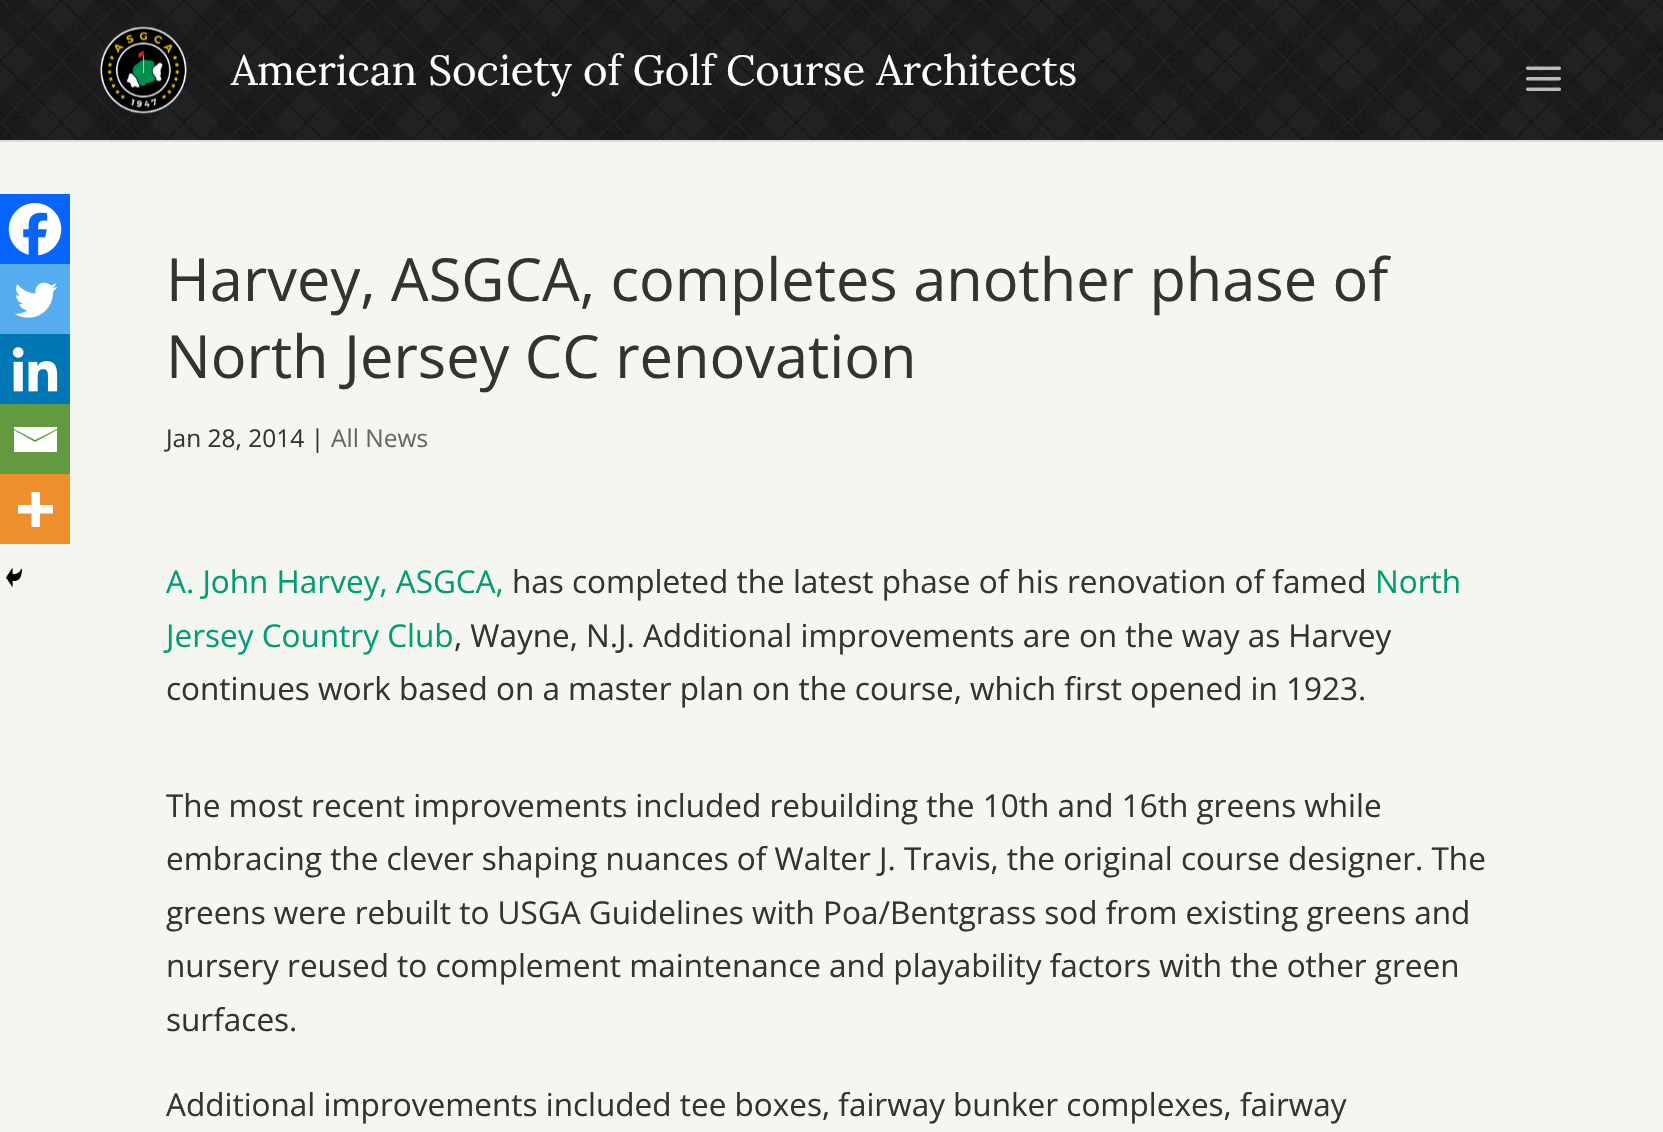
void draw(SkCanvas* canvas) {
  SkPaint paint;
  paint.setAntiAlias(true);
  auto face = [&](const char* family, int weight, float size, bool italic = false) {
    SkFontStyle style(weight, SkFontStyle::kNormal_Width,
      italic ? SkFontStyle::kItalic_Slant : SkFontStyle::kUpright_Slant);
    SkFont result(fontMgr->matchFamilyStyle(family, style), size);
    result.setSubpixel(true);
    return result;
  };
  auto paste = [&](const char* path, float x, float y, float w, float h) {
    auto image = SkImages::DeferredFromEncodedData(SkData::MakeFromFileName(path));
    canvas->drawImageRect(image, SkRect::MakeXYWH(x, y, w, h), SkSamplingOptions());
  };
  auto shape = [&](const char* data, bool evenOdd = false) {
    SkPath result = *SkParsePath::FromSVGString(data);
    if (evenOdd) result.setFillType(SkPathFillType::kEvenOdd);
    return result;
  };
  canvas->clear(0xfff6f6f0);
  paint.setColor(0xffddddd8);
  canvas->drawRect(SkRect::MakeXYWH(0, 140, 1663, 2), paint);
  paste("img/1.png", 0, 0, 1663, 140);
  paste("img/2.png", 100, 26, 87, 88);
  paste("img/3.png", 1526, 66, 35, 25);
  paint.setColor(0xff0765fe);
  canvas->drawRect(SkRect::MakeXYWH(0, 194, 70, 70), paint);
  paste("img/4.png", 8, 203, 54, 53);
  paint.setColor(0xff55acee);
  canvas->drawRect(SkRect::MakeXYWH(0, 264, 70, 70), paint);
  paste("img/5.png", 14, 282, 44, 36);
  paint.setColor(0xff0077b5);
  canvas->drawRect(SkRect::MakeXYWH(0, 334, 70, 70), paint);
  paste("img/6.png", 12, 347, 46, 45);
  paint.setColor(0xff649a3f);
  canvas->drawRect(SkRect::MakeXYWH(0, 404, 70, 70), paint);
  paint.setColor(0xffffffff);
  canvas->drawPath(shape("M12 427H57V429L35 440L14 429V427M14 430L35 442L57 430V452H14V430"), paint);
  paint.setColor(0xffee8e2d);
  canvas->drawRect(SkRect::MakeXYWH(0, 474, 70, 70), paint);
  paint.setColor(0xffffffff);
  canvas->drawPath(shape("M40 505V492H31.5V505H18V513.5H31.5V527H40V513.5H53V505Z", true), paint);
  paste("img/7.png", 6, 567, 16, 21);
  auto f0 = face("Lora", 400, 42);
  canvas->drawString("American Society of Golf Course Architects", 231, 85, f0, paint);
  auto f1 = face("Open Sans", 400, 59.5f);
  paint.setColor(0xff333333);
  canvas->drawString("Harvey, ASGCA, completes another phase of", 166, 301, f1, paint);
  canvas->drawString("North Jersey CC renovation", 166, 378, f1, paint);
  auto f2 = face("Open Sans", 400, 24.5f);
  canvas->drawString("Jan 28, 2014 |", 166, 447, f2, paint);
  paint.setColor(0xff666666);
  canvas->drawString("All News", 331, 447, f2, paint);
  auto f3 = face("Open Sans", 400, 31.5f);
  paint.setColor(0xff009c76);
  canvas->drawString("A. John Harvey, ASGCA,", 166, 593, f3, paint);
  paint.setColor(0xff333333);
  canvas->drawString("has completed the latest phase of his renovation of famed", 512, 593, f3, paint);
  paint.setColor(0xff009c76);
  canvas->drawString("North", 1375, 593, f3, paint);
  canvas->drawString("Jersey Country Club", 166, 647, f3, paint);
  paint.setColor(0xff333333);
  {
    const struct { const char* s; float x, y; } items[] = {
      {", Wayne, N.J. Additional improvements are on the way as Harvey", 454, 647},
      {"continues work based on a master plan on the course, which first opened in 1923.", 166, 700},
      {"The most recent improvements included rebuilding the 10th and 16th greens while", 166, 817},
      {"embracing the clever shaping nuances of Walter J. Travis, the original course designer. The", 166, 870},
      {"greens were rebuilt to USGA Guidelines with Poa/Bentgrass sod from existing greens and", 166, 924},
      {"nursery reused to complement maintenance and playability factors with the other green", 166, 977},
      {"surfaces.", 166, 1031},
      {"Additional improvements included tee boxes, fairway bunker complexes, fairway", 166, 1116},
    };
    for (auto [s, x, y] : items) {
      canvas->drawString(s, x, y, f3, paint);
    }
  }
}
